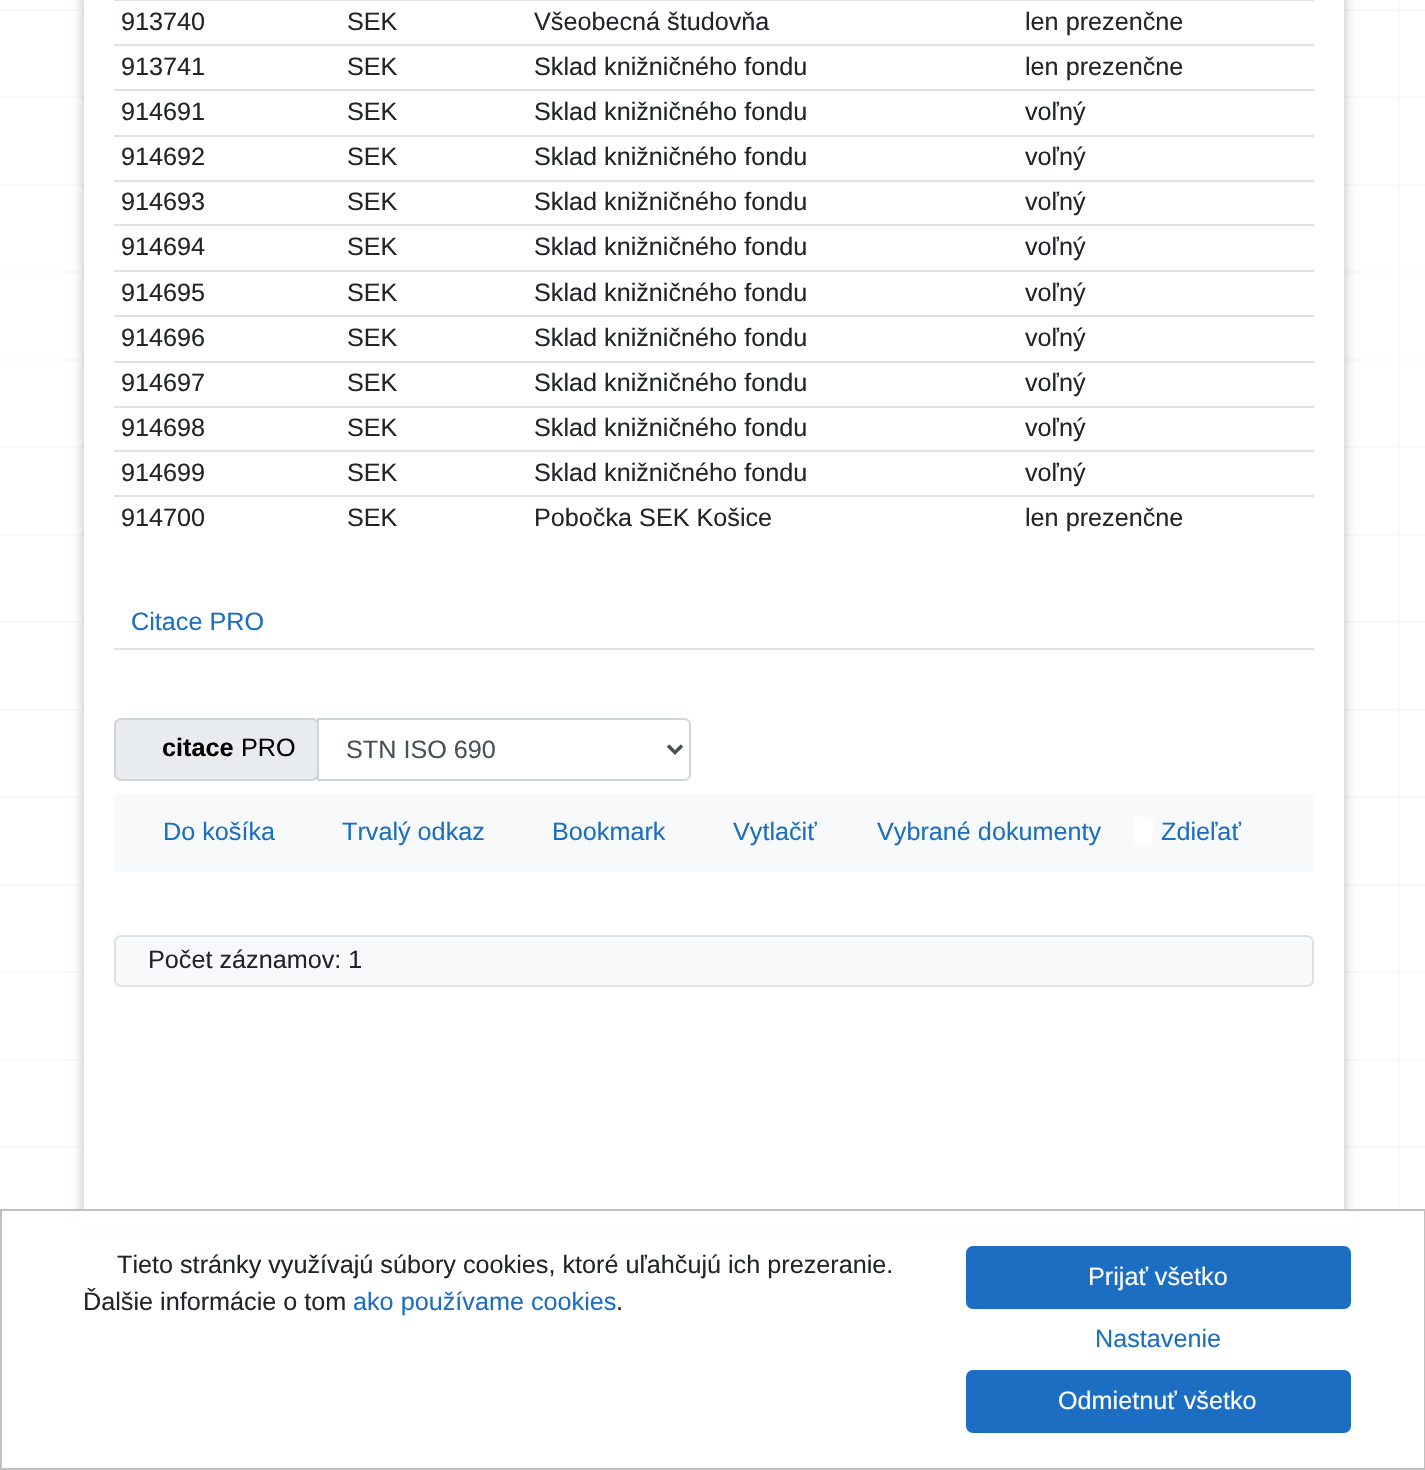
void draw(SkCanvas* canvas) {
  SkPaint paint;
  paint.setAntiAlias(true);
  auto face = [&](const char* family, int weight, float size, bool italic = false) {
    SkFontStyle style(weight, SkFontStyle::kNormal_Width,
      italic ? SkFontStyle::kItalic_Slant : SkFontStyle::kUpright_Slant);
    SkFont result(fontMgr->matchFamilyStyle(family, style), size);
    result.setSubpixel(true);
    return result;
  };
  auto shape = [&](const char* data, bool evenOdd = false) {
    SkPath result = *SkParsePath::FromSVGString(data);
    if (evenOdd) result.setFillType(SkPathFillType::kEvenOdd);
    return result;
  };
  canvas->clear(0xffffffff);
  {
    const struct { float x, y, w, h; SkColor color; } items[] = {
      {1398, 0, 2, 1209, 0xfff8f9fa},
      {0, 9, 1425, 2, 0xfff8f9fa},
      {0, 96, 1425, 2, 0xfff8f9fa},
      {0, 184, 1425, 2, 0xfff8f9fa},
      {0, 271, 1425, 2, 0xfff8f9fa},
      {0, 359, 1425, 2, 0xfff8f9fa},
      {0, 446, 1425, 2, 0xfff8f9fa},
      {0, 534, 1425, 2, 0xfff8f9fa},
      {0, 621, 1425, 2, 0xfff8f9fa},
      {0, 709, 1425, 2, 0xfff8f9fa},
      {0, 796, 1425, 2, 0xfff8f9fa},
      {0, 884, 1425, 2, 0xfff8f9fa},
      {0, 971, 1425, 2, 0xfff8f9fa},
      {0, 1059, 1425, 2, 0xfff8f9fa},
      {0, 1146, 1425, 2, 0xfff8f9fa},
    };
    for (auto [x, y, w, h, color] : items) {
      paint.setColor(color);
      canvas->drawRect(SkRect::MakeXYWH(x, y, w, h), paint);
    }
  }
  paint.setColor(0x33000000);
  paint.setMaskFilter(SkMaskFilter::MakeBlur(kNormal_SkBlurStyle, 5));
  canvas->drawRect(SkRect::MakeXYWH(82, -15, 1264, 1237), paint);
  paint.setMaskFilter(nullptr);
  {
    const struct { float x, y, w, h; SkColor color; } items[] = {
      {84, 0, 1260, 1209, 0xffffffff},
      {114, 0, 1200, 1, 0xffdee2e6},
      {114, 44, 1200, 2, 0xffdee2e6},
      {114, 89, 1200, 2, 0xffdee2e6},
      {114, 135, 1200, 2, 0xffdee2e6},
      {114, 180, 1200, 2, 0xffdee2e6},
      {114, 224, 1200, 2, 0xffdee2e6},
      {114, 270, 1200, 2, 0xffdee2e6},
      {114, 315, 1200, 2, 0xffdee2e6},
      {114, 361, 1200, 2, 0xffdee2e6},
      {114, 406, 1200, 2, 0xffdee2e6},
      {114, 450, 1200, 2, 0xffdee2e6},
      {114, 495, 1200, 2, 0xffdee2e6},
      {114, 648, 1200, 2, 0xffdee2e6},
    };
    for (auto [x, y, w, h, color] : items) {
      paint.setColor(color);
      canvas->drawRect(SkRect::MakeXYWH(x, y, w, h), paint);
    }
  }
  paint.setColor(0xffe9ecef);
  canvas->drawRoundRect(SkRect::MakeXYWH(115, 719, 203, 61), 6, 6, paint);
  paint.setStroke(true);
  paint.setStrokeWidth(2);
  paint.setColor(0xffced4da);
  canvas->drawRoundRect(SkRect::MakeXYWH(115, 719, 203, 61), 6, 6, paint);
  canvas->drawPath(shape("M318 719H684C687.5 719 690 721.5 690 725V774C690 777.5 687.5 780 684 780H318Z"), paint);
  paint.setStrokeWidth(3.5f);
  paint.setColor(0xff495057);
  canvas->drawPath(shape("M668 745.5L675 752.5L682 745.5"), paint);
  paint.setStroke(false);
  paint.setColor(0xfff8f9fa);
  canvas->drawRect(SkRect::MakeXYWH(114, 795, 1200, 77), paint);
  paint.setColor(0xffffffff);
  canvas->drawRect(SkRect::MakeXYWH(1134, 817, 19, 28), paint);
  paint.setColor(0xfff8f9fa);
  canvas->drawRoundRect(SkRect::MakeXYWH(114, 935, 1200, 52), 7, 7, paint);
  paint.setStroke(true);
  paint.setStrokeWidth(2);
  paint.setColor(0x1f333333);
  canvas->drawRoundRect(SkRect::MakeXYWH(115, 936, 1198, 50), 6, 6, paint);
  paint.setStroke(false);
  paint.setColor(0xffffffff);
  canvas->drawRect(SkRect::MakeXYWH(74, 1211, 1280, 19), paint);
  paint.setStroke(true);
  paint.setColor(0xffc0c0c0);
  canvas->drawRect(SkRect::MakeXYWH(1, 1210, 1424, 259), paint);
  paint.setStroke(false);
  paint.setColor(0xff1b6ec2);
  canvas->drawRoundRect(SkRect::MakeXYWH(967, 1247, 383, 61), 6, 6, paint);
  paint.setStroke(true);
  canvas->drawRoundRect(SkRect::MakeXYWH(967, 1247, 383, 61), 6, 6, paint);
  paint.setStroke(false);
  canvas->drawRoundRect(SkRect::MakeXYWH(967, 1371, 383, 61), 6, 6, paint);
  paint.setStroke(true);
  canvas->drawRoundRect(SkRect::MakeXYWH(967, 1371, 383, 61), 6, 6, paint);
  auto f0 = face("Liberation Sans", 400, 25.2f);
  paint.setStroke(false);
  paint.setColor(0xff212529);
  {
    const struct { const char* s; float x, y; } items[] = {
      {"913740", 121, 30},
      {"SEK", 347, 30},
      {"Všeobecná študovňa", 534, 30},
      {"len prezenčne", 1025, 30},
      {"913741", 121, 75},
      {"SEK", 347, 75},
      {"Sklad knižničného fondu", 534, 75},
      {"len prezenčne", 1025, 75},
      {"914691", 121, 120},
      {"SEK", 347, 120},
      {"Sklad knižničného fondu", 534, 120},
      {"voľný", 1025, 120},
      {"914692", 121, 165},
      {"SEK", 347, 165},
      {"Sklad knižničného fondu", 534, 165},
      {"voľný", 1025, 165},
      {"914693", 121, 210},
      {"SEK", 347, 210},
      {"Sklad knižničného fondu", 534, 210},
      {"voľný", 1025, 210},
      {"914694", 121, 255},
      {"SEK", 347, 255},
      {"Sklad knižničného fondu", 534, 255},
      {"voľný", 1025, 255},
      {"914695", 121, 301},
      {"SEK", 347, 301},
      {"Sklad knižničného fondu", 534, 301},
      {"voľný", 1025, 301},
      {"914696", 121, 346},
      {"SEK", 347, 346},
      {"Sklad knižničného fondu", 534, 346},
      {"voľný", 1025, 346},
      {"914697", 121, 391},
      {"SEK", 347, 391},
      {"Sklad knižničného fondu", 534, 391},
      {"voľný", 1025, 391},
      {"914698", 121, 436},
      {"SEK", 347, 436},
      {"Sklad knižničného fondu", 534, 436},
      {"voľný", 1025, 436},
      {"914699", 121, 481},
      {"SEK", 347, 481},
      {"Sklad knižničného fondu", 534, 481},
      {"voľný", 1025, 481},
      {"914700", 121, 526},
      {"SEK", 347, 526},
      {"Pobočka SEK Košice", 534, 526},
      {"len prezenčne", 1025, 526},
    };
    for (auto [s, x, y] : items) {
      canvas->drawString(s, x, y, f0, paint);
    }
  }
  paint.setColor(0xff1b6ec2);
  canvas->drawString("Citace PRO", 131, 630, f0, paint);
  auto f1 = face("Liberation Sans", 700, 25.2f);
  paint.setColor(0xff000000);
  canvas->drawString("citace", 162, 756, f1, paint);
  canvas->drawString("PRO", 241, 756, f0, paint);
  paint.setColor(0xff495057);
  canvas->drawString("STN ISO 690", 346, 758, f0, paint);
  paint.setColor(0xff1b6ec2);
  {
    const struct { const char* s; float x, y; } items[] = {
      {"Do košíka", 163, 840},
      {"Trvalý odkaz", 342, 840},
      {"Bookmark", 552, 840},
      {"Vytlačiť", 733, 840},
      {"Vybrané dokumenty", 877, 840},
      {"Zdieľať", 1161, 840},
    };
    for (auto [s, x, y] : items) {
      canvas->drawString(s, x, y, f0, paint);
    }
  }
  paint.setColor(0xff212529);
  {
    const struct { const char* s; float x, y; } items[] = {
      {"Počet záznamov: 1", 148, 968},
      {"Tieto stránky využívajú súbory cookies, ktoré uľahčujú ich prezeranie.", 117, 1273},
      {"Ďalšie informácie o tom", 83, 1310},
    };
    for (auto [s, x, y] : items) {
      canvas->drawString(s, x, y, f0, paint);
    }
  }
  paint.setColor(0xff1b6ec2);
  canvas->drawString("ako používame cookies", 353, 1310, f0, paint);
  paint.setColor(0xff212529);
  canvas->drawString(".", 616, 1310, f0, paint);
  paint.setColor(0xffffffff);
  canvas->drawString("Prijať všetko", 1088, 1285, f0, paint);
  paint.setColor(0xff1b6ec2);
  canvas->drawString("Nastavenie", 1095, 1347, f0, paint);
  paint.setColor(0xffffffff);
  canvas->drawString("Odmietnuť všetko", 1058, 1409, f0, paint);
}
